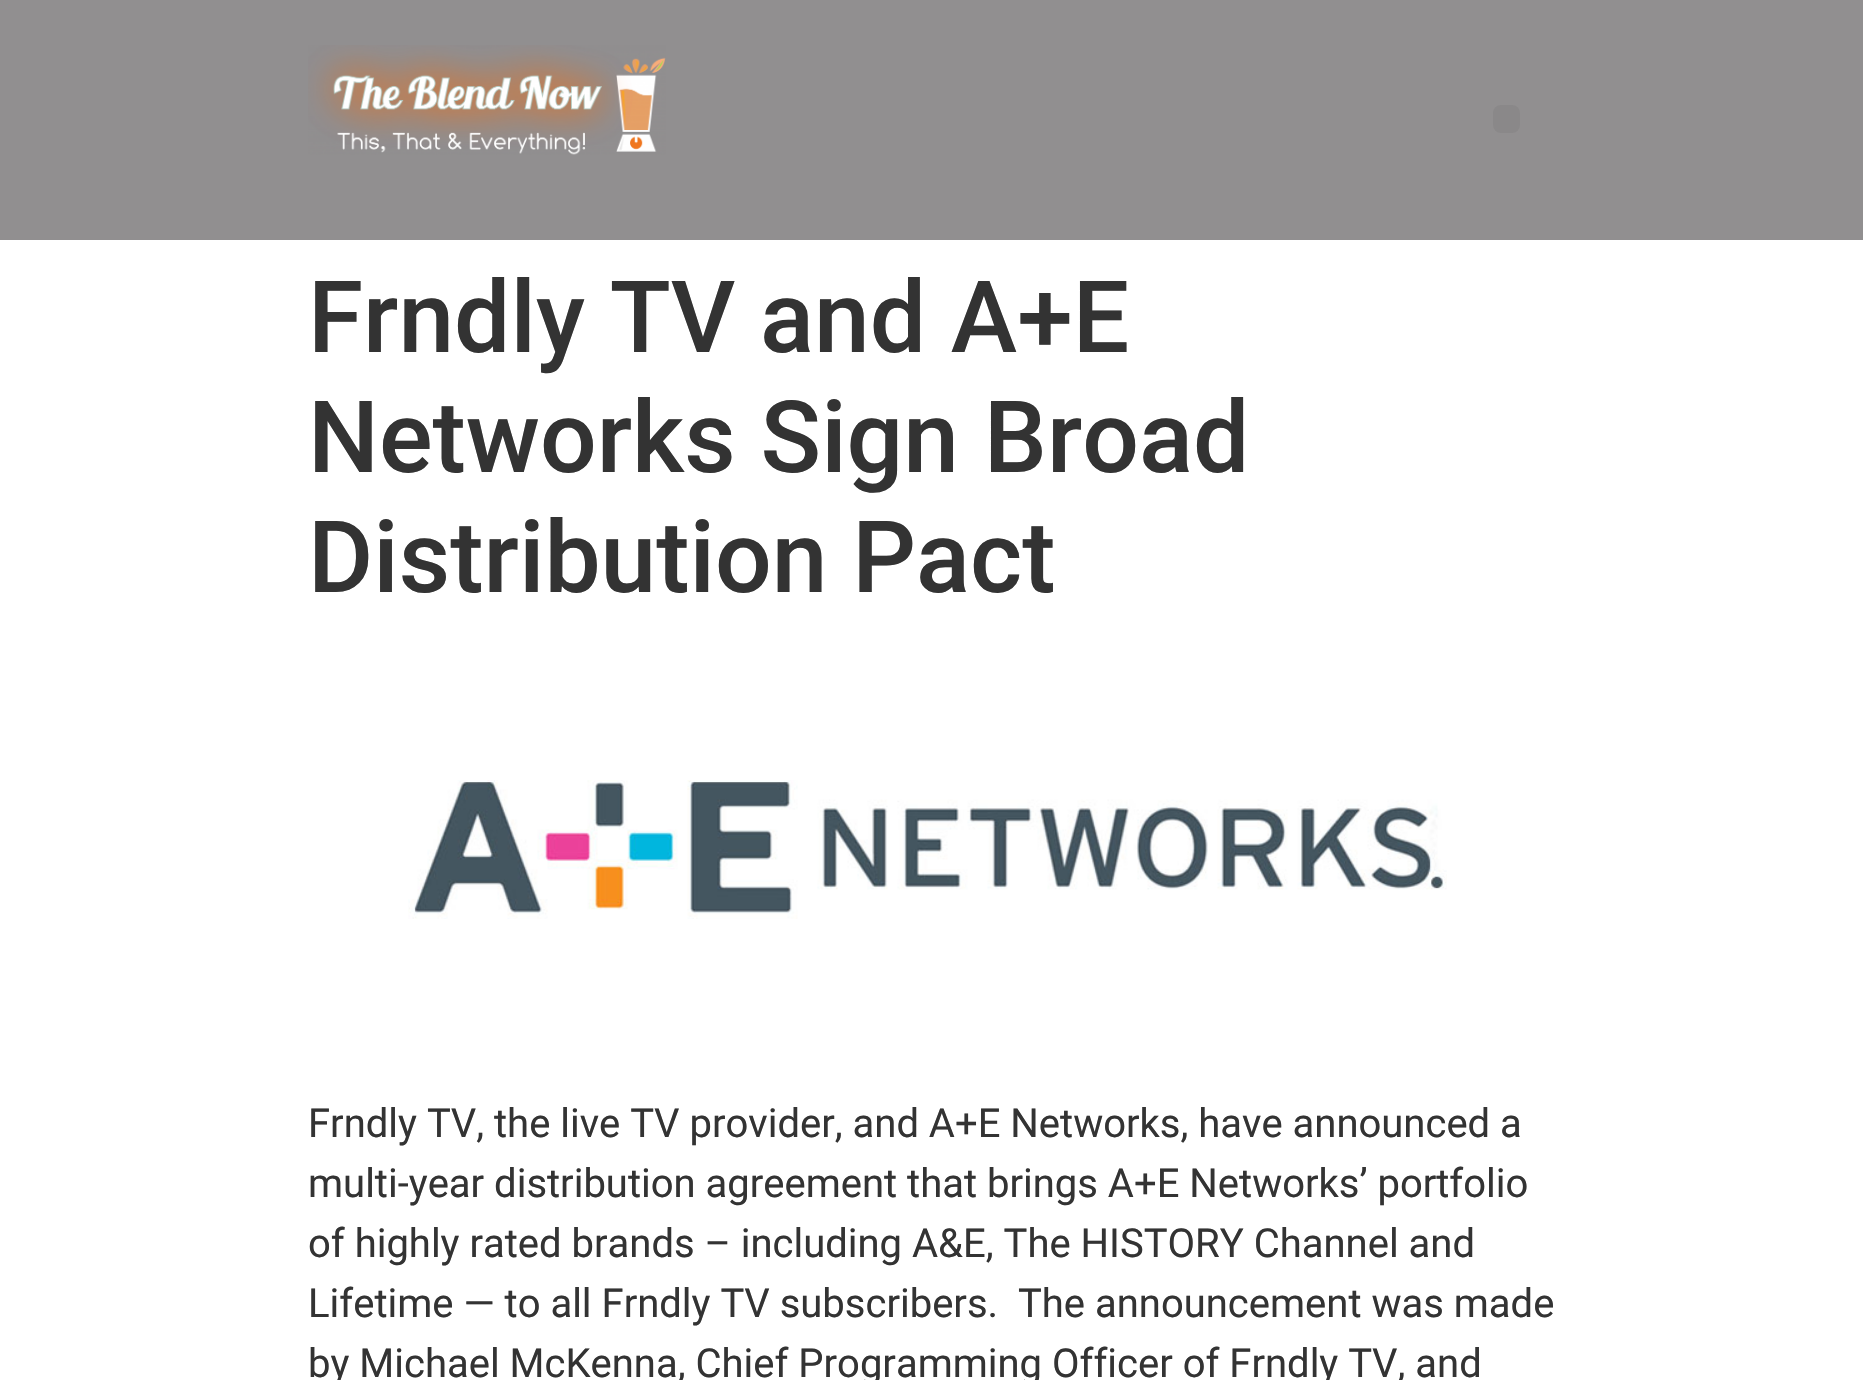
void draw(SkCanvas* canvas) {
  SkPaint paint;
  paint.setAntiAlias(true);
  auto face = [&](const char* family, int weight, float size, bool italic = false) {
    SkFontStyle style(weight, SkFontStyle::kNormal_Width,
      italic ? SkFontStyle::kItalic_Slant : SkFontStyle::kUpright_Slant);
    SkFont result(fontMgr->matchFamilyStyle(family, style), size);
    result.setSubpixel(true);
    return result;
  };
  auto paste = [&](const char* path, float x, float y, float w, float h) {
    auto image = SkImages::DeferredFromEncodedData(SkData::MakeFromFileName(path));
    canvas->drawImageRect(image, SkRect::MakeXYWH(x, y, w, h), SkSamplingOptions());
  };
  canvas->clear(0xffffffff);
  paint.setColor(0xff918f90);
  canvas->drawRect(SkRect::MakeXYWH(0, 0, 1863, 240), paint);
  paste("img/1.png", 308, 45, 358, 110);
  paint.setColor(0xff8a8889);
  canvas->drawRoundRect(SkRect::MakeXYWH(1493, 105, 27, 28), 8, 8, paint);
  paste("img/2.png", 408, 780, 1039, 139);
  auto f0 = face("Roboto", 500, 100);
  paint.setColor(0xff333333);
  {
    const struct { const char* s; float x, y; } items[] = {
      {"Frndly TV and A+E", 308, 352},
      {"Networks Sign Broad", 308, 472},
      {"Distribution Pact", 308, 592},
    };
    for (auto [s, x, y] : items) {
      canvas->drawString(s, x, y, f0, paint);
    }
  }
  auto f1 = face("Roboto", 400, 40);
  {
    const struct { const char* s; float x, y; } items[] = {
      {"Frndly TV, the live TV provider, and A+E Networks, have announced a", 308, 1137},
      {"multi-year distribution agreement that brings A+E Networks’ portfolio", 308, 1197},
      {"of highly rated brands – including A&E, The HISTORY Channel and", 308, 1257},
      {"Lifetime — to all Frndly TV subscribers.  The announcement was made", 308, 1317},
      {"by Michael McKenna, Chief Programming Officer of Frndly TV, and", 308, 1377},
    };
    for (auto [s, x, y] : items) {
      canvas->drawString(s, x, y, f1, paint);
    }
  }
}
